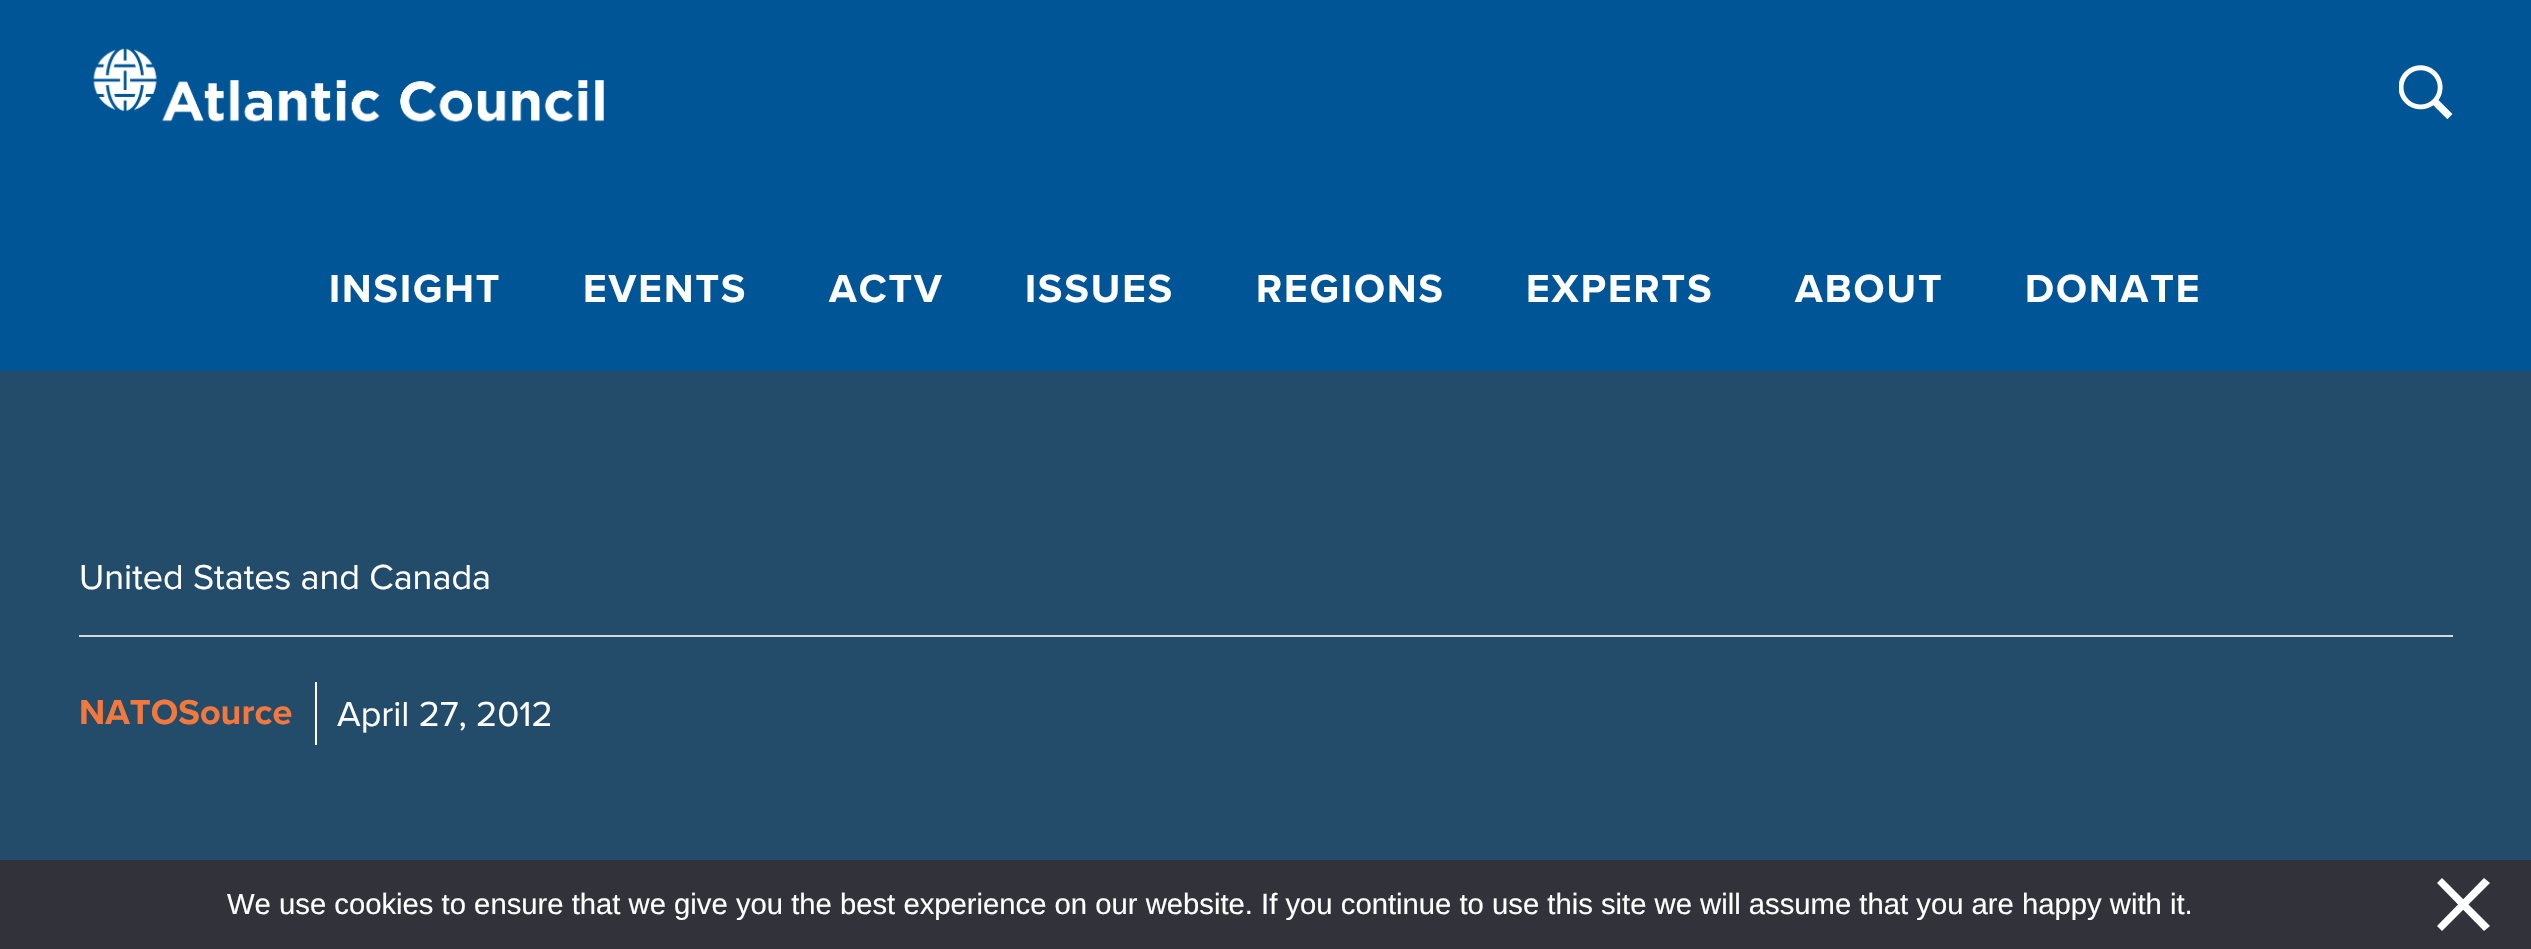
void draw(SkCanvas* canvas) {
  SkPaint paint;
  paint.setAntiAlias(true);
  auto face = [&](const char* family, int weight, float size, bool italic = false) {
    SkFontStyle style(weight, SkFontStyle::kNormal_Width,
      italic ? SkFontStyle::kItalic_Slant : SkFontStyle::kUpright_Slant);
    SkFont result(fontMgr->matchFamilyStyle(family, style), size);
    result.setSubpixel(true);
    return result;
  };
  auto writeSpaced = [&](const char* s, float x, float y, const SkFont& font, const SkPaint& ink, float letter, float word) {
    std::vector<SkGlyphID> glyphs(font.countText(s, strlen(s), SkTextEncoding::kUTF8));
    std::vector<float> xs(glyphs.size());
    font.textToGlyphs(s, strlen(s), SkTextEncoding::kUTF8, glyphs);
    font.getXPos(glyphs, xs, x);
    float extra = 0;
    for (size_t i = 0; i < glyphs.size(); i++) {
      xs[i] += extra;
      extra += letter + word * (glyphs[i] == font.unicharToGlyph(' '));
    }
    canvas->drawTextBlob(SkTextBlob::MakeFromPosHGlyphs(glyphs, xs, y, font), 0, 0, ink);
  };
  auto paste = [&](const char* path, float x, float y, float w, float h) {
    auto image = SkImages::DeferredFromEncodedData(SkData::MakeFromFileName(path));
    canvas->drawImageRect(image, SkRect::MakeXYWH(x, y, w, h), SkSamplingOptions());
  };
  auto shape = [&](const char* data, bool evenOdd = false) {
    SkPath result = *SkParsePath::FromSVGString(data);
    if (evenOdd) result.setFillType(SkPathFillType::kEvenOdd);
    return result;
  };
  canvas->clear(0xff234c6a);
  paint.setColor(0xff005596);
  canvas->drawRect(SkRect::MakeXYWH(0, 0, 2531, 371), paint);
  paste("img/1.png", 93, 48, 511, 74);
  paste("img/2.png", 2399, 65, 54, 54);
  {
    const struct { float x, y, w, h; SkColor color; } items[] = {
      {79, 635, 2374, 2, 0xffd8d8d8},
      {315, 682, 2, 63, 0xffffffff},
      {0, 860, 2531, 89, 0xff32323a},
    };
    for (auto [x, y, w, h, color] : items) {
      paint.setColor(color);
      canvas->drawRect(SkRect::MakeXYWH(x, y, w, h), paint);
    }
  }
  paint.setColor(0xffffffff);
  canvas->drawPath(shape("M2484 878L2490 883L2442 931L2437 926Z"), paint);
  canvas->drawPath(shape("M2437 883L2442 878L2490 926L2484 931Z"), paint);
  auto f0 = face("Proxima Nova", 700, 40.5f);
  {
    const struct { const char* s; float x, y; } items[] = {
      {"INSIGHT", 329, 302},
      {"EVENTS", 583, 302},
      {"ACTV", 829, 302},
      {"ISSUES", 1025, 302},
      {"REGIONS", 1256, 302},
      {"EXPERTS", 1526, 302},
      {"ABOUT", 1795, 302},
      {"DONATE", 2025, 302},
    };
    for (auto [s, x, y] : items) {
      writeSpaced(s, x, y, f0, paint, 2, 0);
    }
  }
  auto f1 = face("Proxima Nova", 400, 36);
  canvas->drawString("United States and Canada", 79, 589, f1, paint);
  auto f2 = face("Proxima Nova", 700, 36);
  paint.setColor(0xfff2783e);
  canvas->drawString("NATOSource", 79, 724, f2, paint);
  paint.setColor(0xffffffff);
  canvas->drawString("April 27, 2012", 337, 726, f1, paint);
  auto f3 = face("Liberation Sans", 400, 29.25f);
  canvas->drawString("We use cookies to ensure that we give you the best experience on our website. If you continue to use this site we will assume that you are happy with it.", 227, 914, f3, paint);
}
